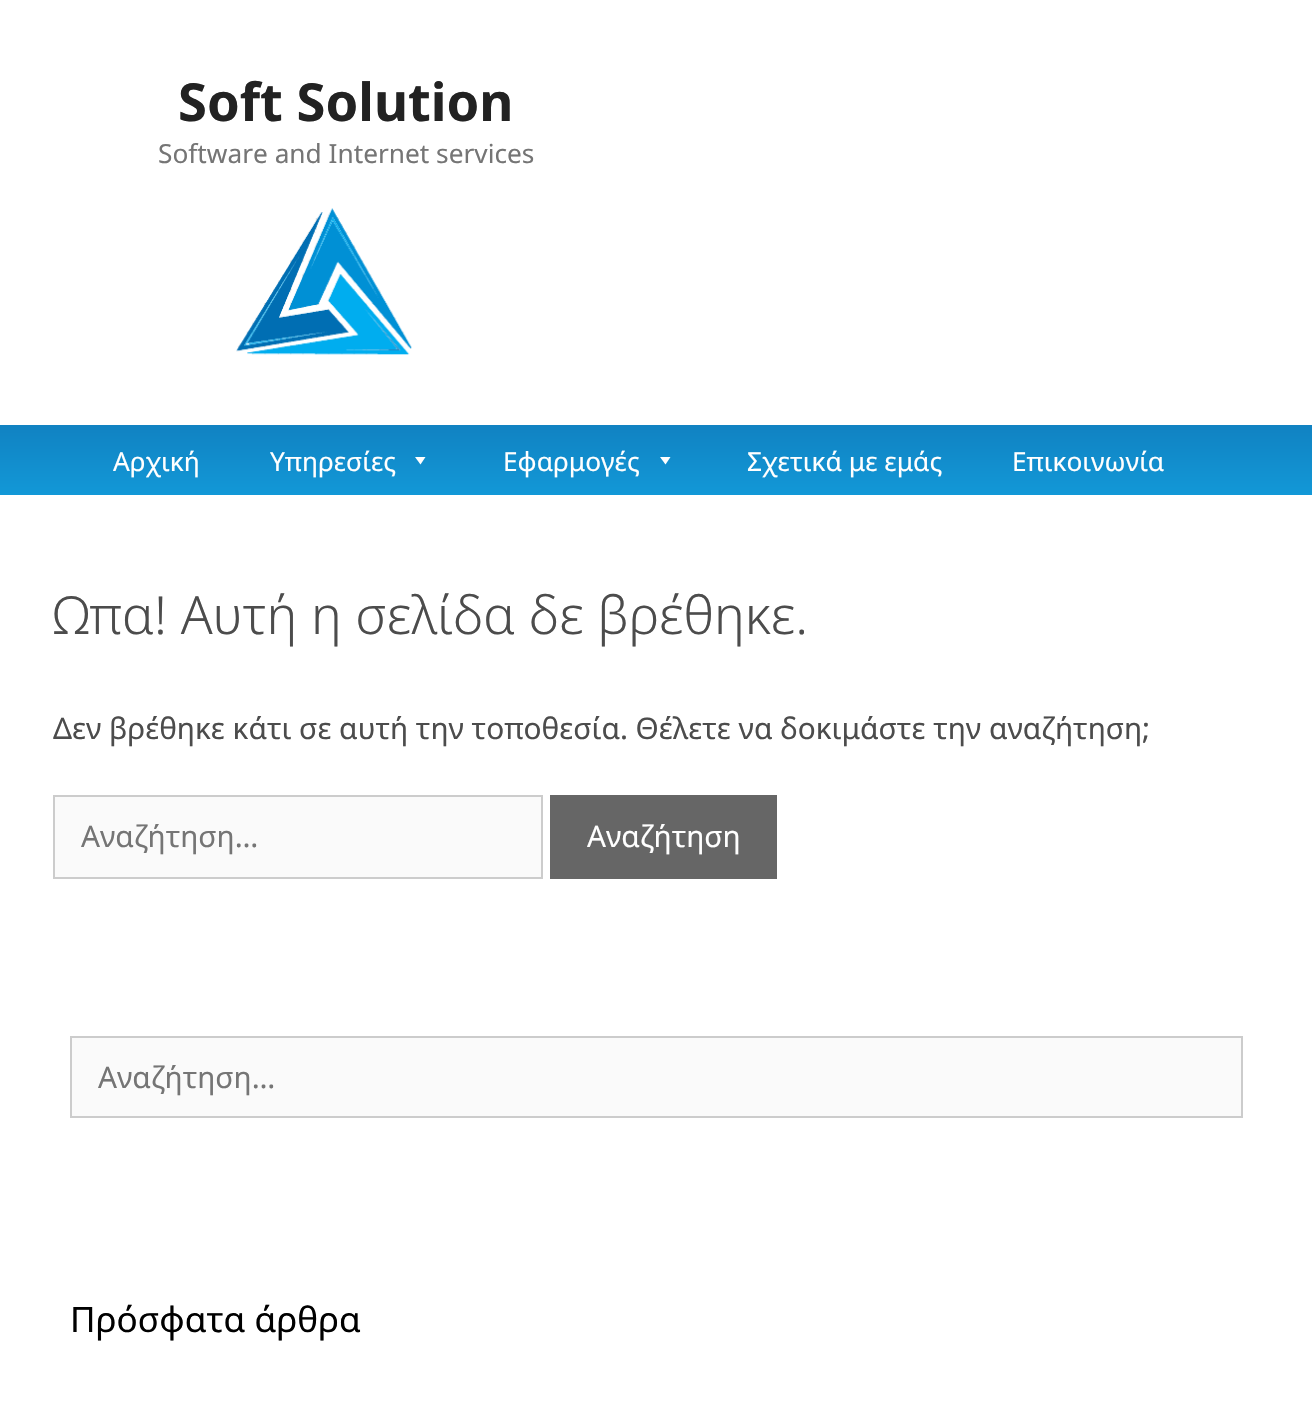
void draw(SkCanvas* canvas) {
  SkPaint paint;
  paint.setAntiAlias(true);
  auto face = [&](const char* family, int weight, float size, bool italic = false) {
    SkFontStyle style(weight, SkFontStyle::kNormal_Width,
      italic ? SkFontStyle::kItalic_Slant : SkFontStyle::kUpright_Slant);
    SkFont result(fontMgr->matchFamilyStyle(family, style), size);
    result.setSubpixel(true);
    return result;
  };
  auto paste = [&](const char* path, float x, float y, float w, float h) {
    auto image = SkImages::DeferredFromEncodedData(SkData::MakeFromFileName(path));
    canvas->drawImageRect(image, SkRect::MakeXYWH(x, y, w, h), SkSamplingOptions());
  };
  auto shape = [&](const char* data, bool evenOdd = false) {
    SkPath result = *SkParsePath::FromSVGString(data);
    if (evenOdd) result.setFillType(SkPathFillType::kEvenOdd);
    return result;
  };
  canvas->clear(0xffffffff);
  paste("img/1.png", 236, 208, 176, 147);
  {
    const SkColor colors[] = {0xff1182c2, 0xff1298d7};
    const float stops[] = {0, 1};
    const SkPoint ends[] = {{656, 425}, {656, 495}};
    paint.setShader(SkGradientShader::MakeLinear(ends, colors, stops, 2, SkTileMode::kClamp));
    paint.setAlpha(255);
  }
  canvas->drawRect(SkRect::MakeXYWH(0, 425, 1312, 70), paint);
  paint.setShader(nullptr);
  paint.setColor(0xffffffff);
  canvas->drawPath(shape("M425.5 457L420.5 464.5L415 457Z"), paint);
  canvas->drawPath(shape("M670.5 457L665.5 464.5L660 457Z"), paint);
  paint.setColor(0xfffafafa);
  canvas->drawRect(SkRect::MakeXYWH(54, 796, 488, 82), paint);
  paint.setStroke(true);
  paint.setStrokeWidth(2);
  paint.setColor(0xffcccccc);
  canvas->drawRect(SkRect::MakeXYWH(54, 796, 488, 82), paint);
  paint.setStroke(false);
  paint.setColor(0xff666666);
  canvas->drawRect(SkRect::MakeXYWH(550, 795, 227, 84), paint);
  paint.setColor(0xfffafafa);
  canvas->drawRect(SkRect::MakeXYWH(71, 1037, 1171, 80), paint);
  paint.setStroke(true);
  paint.setColor(0xffcccccc);
  canvas->drawRect(SkRect::MakeXYWH(71, 1037, 1171, 80), paint);
  auto f0 = face("Noto Sans", 700, 52.5f);
  paint.setStroke(false);
  paint.setColor(0xff222222);
  canvas->drawString("Soft Solution", 178, 121, f0, paint);
  auto f1 = face("Noto Sans", 400, 26.25f);
  paint.setColor(0xff757575);
  canvas->drawString("Software and Internet services", 158, 163, f1, paint);
  paint.setColor(0xffffffff);
  {
    const struct { const char* s; float x, y; } items[] = {
      {"Αρχική", 113, 471},
      {"Υπηρεσίες", 270, 471},
      {"Εφαρμογές", 503, 471},
      {"Σχετικά με εμάς", 747, 471},
      {"Επικοινωνία", 1012, 471},
    };
    for (auto [s, x, y] : items) {
      canvas->drawString(s, x, y, f1, paint);
    }
  }
  auto f2 = face("Noto Sans", 300, 52.5f);
  paint.setColor(0xff4c4c4c);
  canvas->drawString("Ωπα! Αυτή η σελίδα δε βρέθηκε.", 53, 634, f2, paint);
  auto f3 = face("Noto Sans", 400, 29.75f);
  canvas->drawString("Δεν βρέθηκε κάτι σε αυτή την τοποθεσία. Θέλετε να δοκιμάστε την αναζήτηση;", 53, 739, f3, paint);
  paint.setColor(0xff757575);
  canvas->drawString("Αναζήτηση…", 81, 847, f3, paint);
  paint.setColor(0xffffffff);
  canvas->drawString("Αναζήτηση", 587, 847, f3, paint);
  paint.setColor(0xff757575);
  canvas->drawString("Αναζήτηση…", 98, 1088, f3, paint);
  auto f4 = face("Noto Sans", 400, 35);
  paint.setColor(0xff000000);
  canvas->drawString("Πρόσφατα άρθρα", 70, 1332, f4, paint);
}
